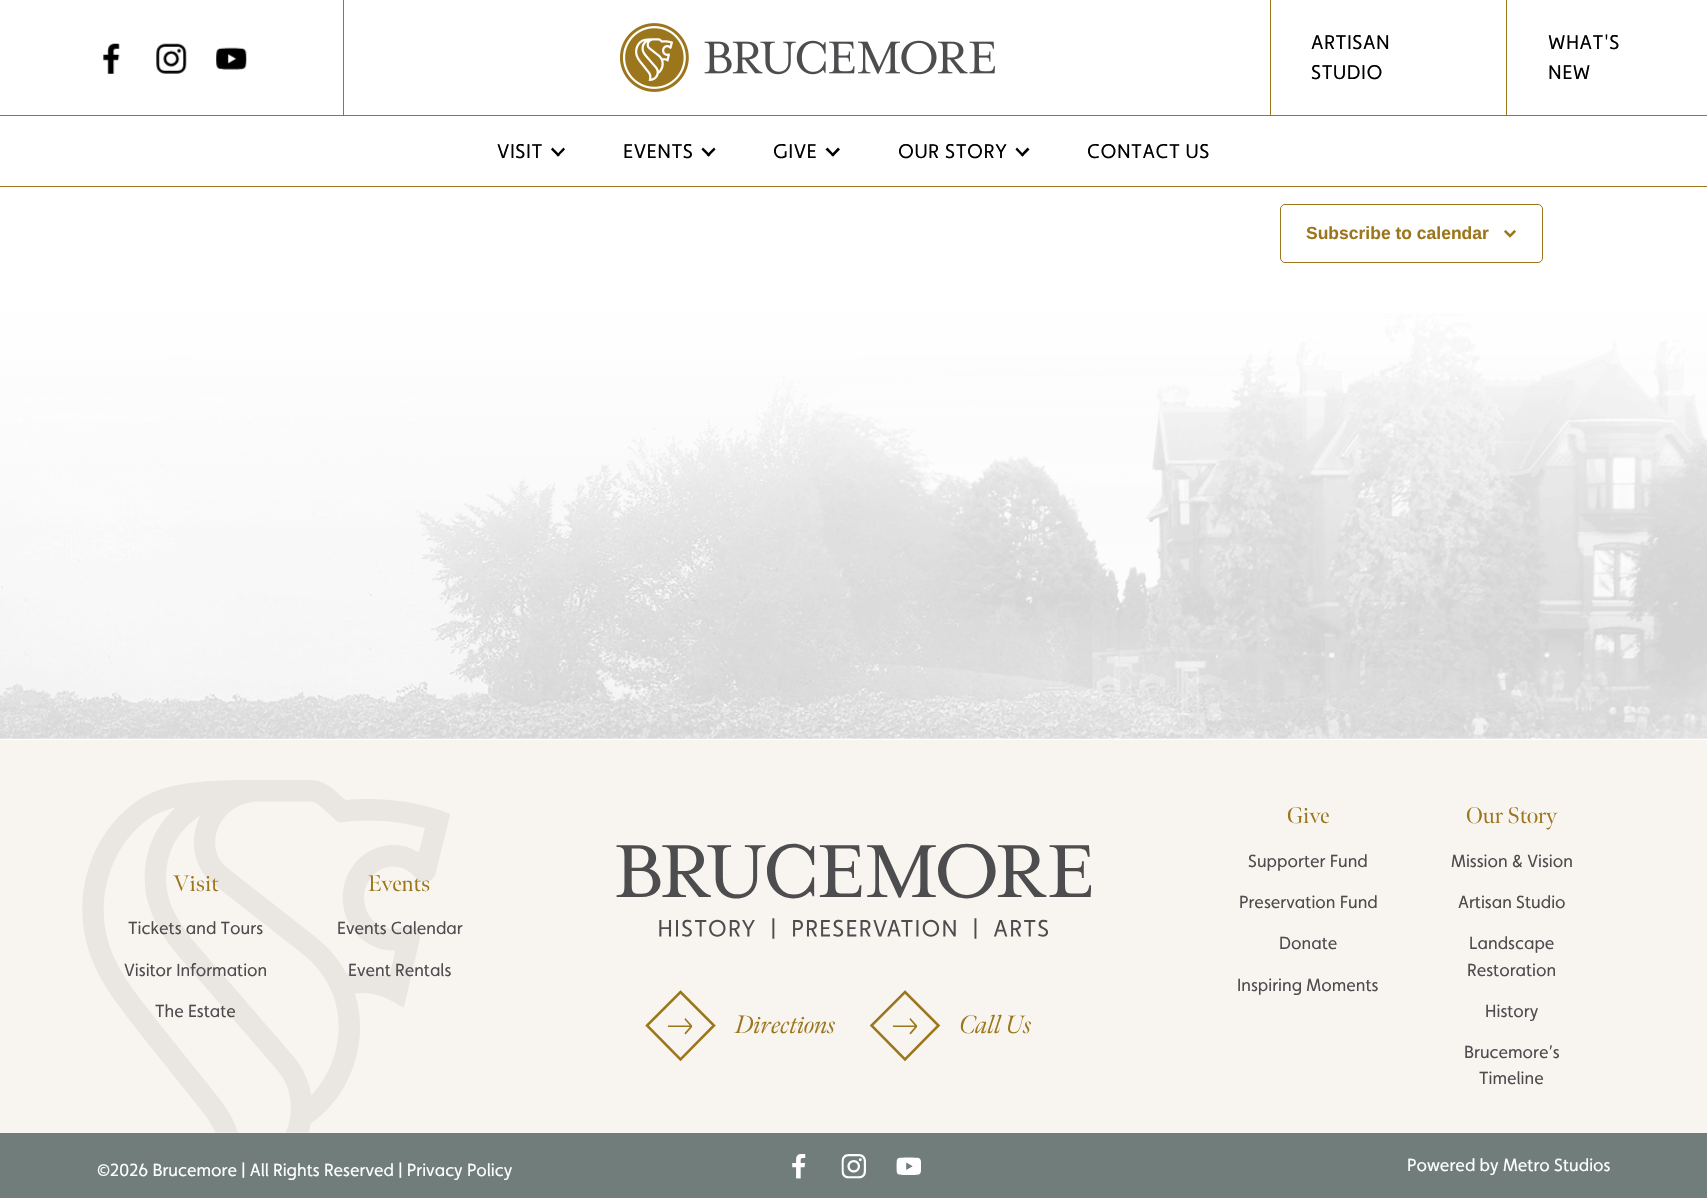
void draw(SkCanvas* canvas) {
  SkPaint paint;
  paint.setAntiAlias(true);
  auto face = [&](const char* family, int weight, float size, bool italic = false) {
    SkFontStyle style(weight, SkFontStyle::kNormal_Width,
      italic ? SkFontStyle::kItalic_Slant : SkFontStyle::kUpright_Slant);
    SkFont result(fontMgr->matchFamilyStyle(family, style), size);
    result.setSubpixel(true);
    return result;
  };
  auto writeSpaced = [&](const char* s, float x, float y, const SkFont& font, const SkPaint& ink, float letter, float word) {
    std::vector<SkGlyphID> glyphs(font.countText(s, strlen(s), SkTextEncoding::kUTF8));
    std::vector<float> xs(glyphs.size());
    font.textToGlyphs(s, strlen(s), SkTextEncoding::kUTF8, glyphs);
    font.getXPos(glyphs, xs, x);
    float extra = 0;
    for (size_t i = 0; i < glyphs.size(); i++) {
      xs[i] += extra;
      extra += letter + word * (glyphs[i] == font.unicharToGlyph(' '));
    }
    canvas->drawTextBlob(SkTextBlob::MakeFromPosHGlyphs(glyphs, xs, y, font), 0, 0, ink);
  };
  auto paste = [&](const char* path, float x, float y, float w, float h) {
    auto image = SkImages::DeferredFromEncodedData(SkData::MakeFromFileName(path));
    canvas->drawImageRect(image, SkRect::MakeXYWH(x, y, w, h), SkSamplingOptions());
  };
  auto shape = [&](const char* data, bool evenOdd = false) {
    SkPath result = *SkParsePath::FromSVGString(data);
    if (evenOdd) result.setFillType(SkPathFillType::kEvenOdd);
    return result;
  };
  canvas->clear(0xffffffff);
  paint.setColor(0xff9c761c);
  canvas->drawRect(SkRect::MakeXYWH(0, 186, 1707, 1), paint);
  canvas->drawRect(SkRect::MakeXYWH(343, 0, 1, 115), paint);
  paste("img/1.png", 103, 43, 17, 31);
  paste("img/2.png", 156, 43, 31, 31);
  paste("img/3.png", 216, 47, 31, 23);
  paste("img/4.png", 620, 23, 375, 69);
  {
    const struct { float x, y, w, h; SkColor color; } items[] = {
      {1270, 0, 1, 115, 0xff9c761c},
      {1506, 0, 1, 115, 0xff9c761c},
      {0, 115, 1707, 1, 0xff9c761c},
    };
    for (auto [x, y, w, h, color] : items) {
      paint.setColor(color);
      canvas->drawRect(SkRect::MakeXYWH(x, y, w, h), paint);
    }
  }
  paint.setColor(0xff000000);
  canvas->drawPath(shape("M563.5 147.5L565 149.5L558 156.5L556.5 155Z"), paint);
  canvas->drawPath(shape("M552.5 147.5L560 155L558 156.5L551 149.5Z"), paint);
  canvas->drawPath(shape("M714 147.5L715.5 149.5L708.5 156.5L706.5 155Z"), paint);
  canvas->drawPath(shape("M703 147.5L710.5 155L708.5 156.5L701.5 149.5Z"), paint);
  canvas->drawPath(shape("M838 147.5L840 149.5L833 156.5L831 155Z"), paint);
  canvas->drawPath(shape("M827.5 147.5L834.5 155L833 156.5L825.5 149.5Z"), paint);
  canvas->drawPath(shape("M1027.5 147.5L1029.5 149.5L1022.5 156.5L1020.5 155Z"), paint);
  canvas->drawPath(shape("M1017 147.5L1024 155L1022.5 156.5L1015.5 149.5Z"), paint);
  paste("img/5.png", 0, 313, 1707, 426);
  paint.setStroke(true);
  paint.setStrokeWidth(1);
  paint.setColor(0xff9c761c);
  canvas->drawRoundRect(SkRect::MakeXYWH(1280.5f, 204.5f, 262, 58), 4.5f, 4.5f, paint);
  paste("img/6.png", 1504, 230, 12, 8);
  paint.setStroke(false);
  paint.setColor(0xfff8f4ef);
  canvas->drawRect(SkRect::MakeXYWH(0, 740, 1707, 393), paint);
  paste("img/7.png", 82, 780, 368, 353);
  paste("img/8.png", 616, 843, 475, 96);
  paint.setStroke(true);
  paint.setStrokeWidth(2.5f);
  paint.setColor(0xff9c761c);
  canvas->drawPath(shape("M680.5 992L714 1025.5L680.5 1059.5L647 1025.5Z"), paint);
  paste("img/9.png", 667, 1018, 26, 17);
  canvas->drawPath(shape("M905 992L938.5 1025.5L905 1059.5L871.5 1025.5Z"), paint);
  paste("img/9.png", 892, 1018, 26, 17);
  paint.setStroke(false);
  paint.setColor(0xff707d7a);
  canvas->drawRect(SkRect::MakeXYWH(0, 1133, 1707, 65), paint);
  paste("img/10.png", 792, 1154, 14, 25);
  paste("img/11.png", 841, 1154, 25, 25);
  paste("img/12.png", 896, 1157, 25, 18);
  auto f0 = face("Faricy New", 400, 20);
  paint.setColor(0xff000000);
  {
    const struct { const char* s; float x, y; } items[] = {
      {"ARTISAN", 1311, 49},
      {"STUDIO", 1311, 79},
      {"WHAT'S", 1548, 49},
      {"NEW", 1548, 79},
      {"VISIT", 497, 158},
      {"EVENTS", 623, 158},
      {"GIVE", 773, 158},
      {"OUR STORY", 898, 158},
      {"CONTACT US", 1087, 158},
    };
    for (auto [s, x, y] : items) {
      writeSpaced(s, x, y, f0, paint, 0.5f, 0);
    }
  }
  auto f1 = face("Liberation Sans", 700, 17.5f);
  paint.setColor(0xff9c761c);
  canvas->drawString("Subscribe to calendar", 1306, 239, f1, paint);
  auto f2 = face("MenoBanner", 400, 22.5f);
  canvas->drawString("Visit", 173, 891, f2, paint);
  auto f3 = face("Faricy New", 400, 17.5f);
  paint.setColor(0xff4d4d4f);
  {
    const struct { const char* s; float x, y; } items[] = {
      {"Tickets and Tours", 128, 934},
      {"Visitor Information", 124, 976},
      {"The Estate", 155, 1017},
    };
    for (auto [s, x, y] : items) {
      canvas->drawString(s, x, y, f3, paint);
    }
  }
  paint.setColor(0xff9c761c);
  canvas->drawString("Events", 368, 891, f2, paint);
  paint.setColor(0xff4d4d4f);
  canvas->drawString("Events Calendar", 337, 934, f3, paint);
  canvas->drawString("Event Rentals", 348, 976, f3, paint);
  paint.setColor(0xff9c761c);
  canvas->drawString("Give", 1287, 823, f2, paint);
  paint.setColor(0xff4d4d4f);
  {
    const struct { const char* s; float x, y; } items[] = {
      {"Supporter Fund", 1248, 867},
      {"Preservation Fund", 1239, 908},
      {"Donate", 1279, 949},
      {"Inspiring Moments", 1237, 991},
    };
    for (auto [s, x, y] : items) {
      canvas->drawString(s, x, y, f3, paint);
    }
  }
  paint.setColor(0xff9c761c);
  canvas->drawString("Our Story", 1466, 823, f2, paint);
  paint.setColor(0xff4d4d4f);
  {
    const struct { const char* s; float x, y; } items[] = {
      {"Mission & Vision", 1451, 867},
      {"Artisan Studio", 1458, 908},
      {"Landscape", 1469, 949},
      {"Restoration", 1467, 976},
      {"History", 1485, 1017},
      {"Brucemore’s", 1464, 1058},
      {"Timeline", 1479, 1084},
    };
    for (auto [s, x, y] : items) {
      canvas->drawString(s, x, y, f3, paint);
    }
  }
  auto f4 = face("MenoBanner", 400, 25, true);
  paint.setColor(0xff9c761c);
  canvas->drawString("Directions", 736, 1033, f4, paint);
  canvas->drawString("Call Us", 960, 1033, f4, paint);
  paint.setColor(0xffffffff);
  canvas->drawString("©2026 Brucemore | All Rights Reserved | Privacy Policy", 97, 1176, f3, paint);
  canvas->drawString("Powered by Metro Studios", 1407, 1171, f3, paint);
}
